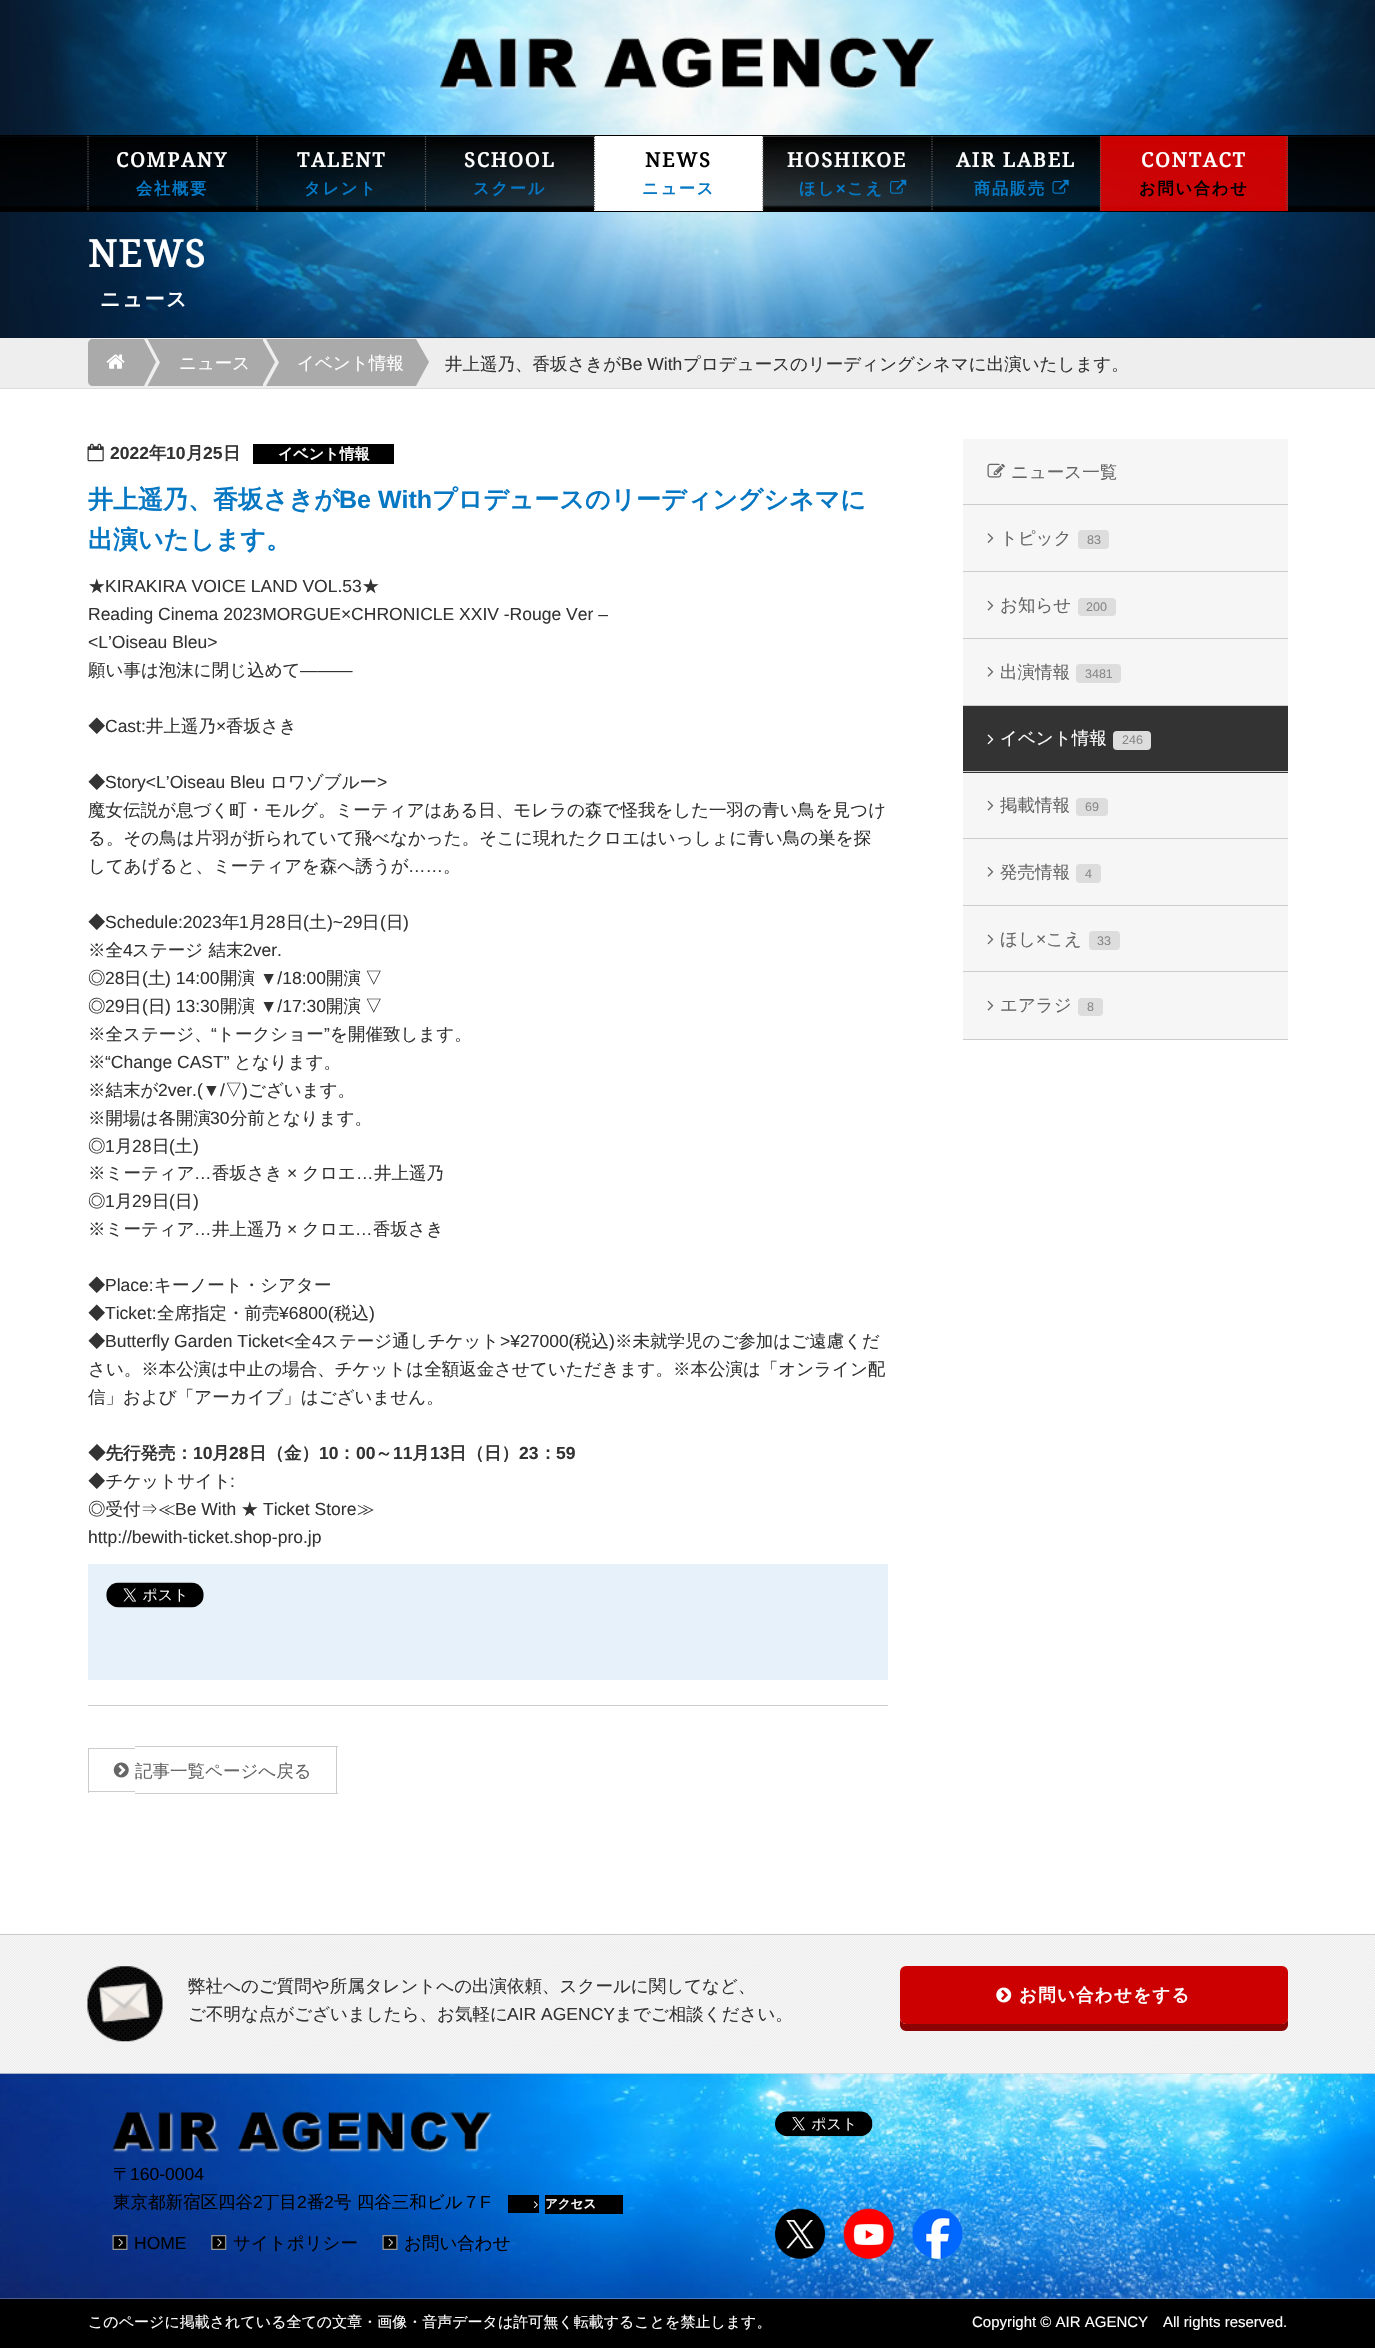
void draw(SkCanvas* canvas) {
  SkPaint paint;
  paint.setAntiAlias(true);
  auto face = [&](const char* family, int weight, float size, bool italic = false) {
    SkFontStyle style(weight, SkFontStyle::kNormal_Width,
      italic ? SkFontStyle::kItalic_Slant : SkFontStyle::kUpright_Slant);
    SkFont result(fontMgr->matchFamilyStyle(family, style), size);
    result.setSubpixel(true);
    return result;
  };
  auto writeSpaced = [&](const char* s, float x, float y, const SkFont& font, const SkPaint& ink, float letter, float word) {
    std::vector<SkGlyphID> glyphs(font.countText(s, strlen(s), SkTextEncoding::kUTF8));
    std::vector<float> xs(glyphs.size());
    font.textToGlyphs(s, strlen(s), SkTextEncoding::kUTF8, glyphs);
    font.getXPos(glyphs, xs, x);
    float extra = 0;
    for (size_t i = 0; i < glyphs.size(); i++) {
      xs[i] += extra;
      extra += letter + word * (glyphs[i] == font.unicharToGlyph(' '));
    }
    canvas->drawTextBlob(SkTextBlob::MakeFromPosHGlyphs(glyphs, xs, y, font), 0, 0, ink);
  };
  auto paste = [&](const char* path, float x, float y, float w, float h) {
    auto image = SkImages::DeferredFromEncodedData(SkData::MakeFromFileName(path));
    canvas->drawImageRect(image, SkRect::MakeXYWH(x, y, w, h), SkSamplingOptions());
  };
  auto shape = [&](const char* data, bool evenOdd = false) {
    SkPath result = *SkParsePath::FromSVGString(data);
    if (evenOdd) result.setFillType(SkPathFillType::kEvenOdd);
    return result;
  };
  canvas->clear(0xffffffff);
  paint.setColor(0xff08192d);
  canvas->drawRect(SkRect::MakeXYWH(0, 0, 1375, 338), paint);
  paste("img/1.png", 9, 0, 1366, 338);
  paste("img/2.png", 440, 37, 496, 53);
  paste("img/3.png", 0, 136, 1375, 75);
  paint.setColor(0xff000000);
  canvas->drawRect(SkRect::MakeXYWH(0, 135, 1375, 1), paint);
  canvas->drawRect(SkRect::MakeXYWH(0, 211, 1375, 1), paint);
  paint.setStroke(true);
  paint.setStrokeWidth(1.2f);
  paint.setColor(0xff5b5b5c);
  paint.setPathEffect(SkDashPathEffect::Make({{1.25f, 1.25f}}, 0));
  canvas->drawPath(shape("M88 136V211"), paint);
  paint.setPathEffect(nullptr);
  paint.setPathEffect(SkDashPathEffect::Make({{1.25f, 1.25f}}, 0));
  canvas->drawPath(shape("M257 136V211"), paint);
  paint.setPathEffect(nullptr);
  paint.setPathEffect(SkDashPathEffect::Make({{1.25f, 1.25f}}, 0));
  canvas->drawPath(shape("M425.5 136V211"), paint);
  paint.setPathEffect(nullptr);
  paint.setStroke(false);
  paint.setColor(0xffffffff);
  canvas->drawRect(SkRect::MakeXYWH(594, 136, 169, 75), paint);
  paint.setStroke(true);
  paint.setColor(0xff5b5b5c);
  paint.setPathEffect(SkDashPathEffect::Make({{1.25f, 1.25f}}, 0));
  canvas->drawPath(shape("M594.5 136V211"), paint);
  paint.setPathEffect(nullptr);
  paint.setPathEffect(SkDashPathEffect::Make({{1.25f, 1.25f}}, 0));
  canvas->drawPath(shape("M763 136V211"), paint);
  paint.setPathEffect(nullptr);
  paste("img/4.png", 890, 179, 17, 15);
  paint.setPathEffect(SkDashPathEffect::Make({{1.25f, 1.25f}}, 0));
  canvas->drawPath(shape("M932 136V211"), paint);
  paint.setPathEffect(nullptr);
  paste("img/5.png", 1052, 179, 17, 15);
  paint.setStroke(false);
  paint.setColor(0xccfc0000);
  canvas->drawRect(SkRect::MakeXYWH(1100, 136, 188, 75), paint);
  paint.setStroke(true);
  paint.setColor(0xff5b5b5c);
  paint.setPathEffect(SkDashPathEffect::Make({{1.25f, 1.25f}}, 0));
  canvas->drawPath(shape("M1287 136V211"), paint);
  paint.setPathEffect(nullptr);
  paint.setPathEffect(SkDashPathEffect::Make({{1.25f, 1.25f}}, 0));
  canvas->drawPath(shape("M1100.5 136V211"), paint);
  paint.setPathEffect(nullptr);
  paint.setStroke(false);
  paint.setColor(0xffeeeeee);
  canvas->drawRect(SkRect::MakeXYWH(0, 338, 1375, 50), paint);
  paint.setColor(0xffdddddd);
  canvas->drawRect(SkRect::MakeXYWH(0, 388, 1375, 1), paint);
  paint.setColor(0xffaaaaaa);
  canvas->drawPath(shape("M93 339H144V386H93C90 386 88 384 88 381V344C88 341 90 339 93 339Z"), paint);
  paste("img/6.png", 106, 354, 19, 15);
  canvas->drawPath(shape("M144 386V339L156 362Z"), paint);
  canvas->drawRect(SkRect::MakeXYWH(173, 339, 90, 47), paint);
  canvas->drawPath(shape("M147.5 339H172.5L160 362.5Z"), paint);
  canvas->drawRect(SkRect::MakeXYWH(160, 339, 13, 47), paint);
  canvas->drawPath(shape("M172.5 386H147.5L160 362.5Z"), paint);
  canvas->drawPath(shape("M262 386V339L275 362Z"), paint);
  canvas->drawRect(SkRect::MakeXYWH(291, 339, 125, 47), paint);
  canvas->drawPath(shape("M266 339H291L279 362.5Z"), paint);
  canvas->drawRect(SkRect::MakeXYWH(279, 339, 12, 47), paint);
  canvas->drawPath(shape("M291 386H266L279 362.5Z"), paint);
  canvas->drawPath(shape("M416 386V339L429 362Z"), paint);
  paint.setColor(0xffcccccc);
  canvas->drawRect(SkRect::MakeXYWH(88, 1705, 800, 1), paint);
  paste("img/7.png", 87, 443, 17, 19);
  paint.setColor(0xff000000);
  canvas->drawRect(SkRect::MakeXYWH(253, 444, 141, 20), paint);
  paint.setColor(0xffe6f1f9);
  canvas->drawRect(SkRect::MakeXYWH(88, 1564, 800, 116), paint);
  paste("img/8.png", 106, 1582, 98, 26);
  paste("img/9.png", 113, 1762, 16, 16);
  {
    const struct { float x, y, w, h; SkColor color; } items[] = {
      {88, 1748, 47, 1, 0xffcccccc},
      {88, 1791, 47, 1, 0xffcccccc},
      {88, 1748, 1, 45, 0xffcccccc},
      {135, 1746, 203, 1, 0xffcccccc},
      {336, 1746, 1, 48, 0xffcccccc},
      {135, 1793, 203, 1, 0xffcccccc},
      {963, 439, 325, 65, 0xfff6f6f6},
      {963, 504, 325, 1, 0xffcccccc},
    };
    for (auto [x, y, w, h, color] : items) {
      paint.setColor(color);
      canvas->drawRect(SkRect::MakeXYWH(x, y, w, h), paint);
    }
  }
  paste("img/10.png", 987, 463, 18, 15);
  paint.setColor(0xfff6f6f6);
  canvas->drawRect(SkRect::MakeXYWH(963, 505, 325, 133), paint);
  paint.setColor(0xffcccccc);
  canvas->drawRect(SkRect::MakeXYWH(963, 571, 325, 1), paint);
  paste("img/11.png", 987, 533, 7, 10);
  paint.setColor(0xffdddddd);
  canvas->drawRoundRect(SkRect::MakeXYWH(1078, 530, 31, 19), 4, 4, paint);
  paint.setColor(0xffcccccc);
  canvas->drawRect(SkRect::MakeXYWH(963, 638, 325, 1), paint);
  paste("img/12.png", 987, 600, 7, 11);
  paint.setColor(0xffdddddd);
  canvas->drawRoundRect(SkRect::MakeXYWH(1078, 598, 38, 18), 4, 4, paint);
  paint.setColor(0xfff6f6f6);
  canvas->drawRect(SkRect::MakeXYWH(963, 639, 325, 66), paint);
  paint.setColor(0xffcccccc);
  canvas->drawRect(SkRect::MakeXYWH(963, 705, 325, 1), paint);
  paste("img/13.png", 987, 667, 7, 10);
  paint.setColor(0xffdddddd);
  canvas->drawRoundRect(SkRect::MakeXYWH(1076, 664, 45, 19), 4, 4, paint);
  paint.setColor(0xff333333);
  canvas->drawRect(SkRect::MakeXYWH(963, 706, 325, 67), paint);
  paint.setColor(0xffcccccc);
  canvas->drawRect(SkRect::MakeXYWH(963, 771, 325, 1), paint);
  paste("img/14.png", 987, 734, 7, 11);
  paint.setColor(0xffdddddd);
  canvas->drawRoundRect(SkRect::MakeXYWH(1113, 731, 38, 19), 4, 4, paint);
  paint.setColor(0xfff6f6f6);
  canvas->drawRect(SkRect::MakeXYWH(963, 773, 325, 65), paint);
  paint.setColor(0xffcccccc);
  canvas->drawRect(SkRect::MakeXYWH(963, 838, 325, 1), paint);
  paste("img/12.png", 987, 800, 7, 11);
  paint.setColor(0xffdddddd);
  canvas->drawRoundRect(SkRect::MakeXYWH(1076, 798, 32, 18), 4, 4, paint);
  paint.setColor(0xfff6f6f6);
  canvas->drawRect(SkRect::MakeXYWH(963, 839, 325, 66), paint);
  paint.setColor(0xffcccccc);
  canvas->drawRect(SkRect::MakeXYWH(963, 905, 325, 1), paint);
  paste("img/13.png", 987, 867, 7, 10);
  paint.setColor(0xffdddddd);
  canvas->drawRoundRect(SkRect::MakeXYWH(1076, 864, 25, 19), 4, 4, paint);
  paint.setColor(0xfff6f6f6);
  canvas->drawRect(SkRect::MakeXYWH(963, 906, 325, 133), paint);
  paint.setColor(0xffcccccc);
  canvas->drawRect(SkRect::MakeXYWH(963, 971, 325, 1), paint);
  paste("img/15.png", 987, 934, 7, 11);
  paint.setColor(0xffdddddd);
  canvas->drawRoundRect(SkRect::MakeXYWH(1089, 931, 31, 19), 4, 4, paint);
  paint.setColor(0xffcccccc);
  canvas->drawRect(SkRect::MakeXYWH(963, 1039, 325, 1), paint);
  paste("img/12.png", 987, 1000, 7, 11);
  paint.setColor(0xffdddddd);
  canvas->drawRoundRect(SkRect::MakeXYWH(1078, 998, 25, 18), 4, 4, paint);
  paste("img/16.png", 0, 1933, 1375, 140);
  paint.setColor(0xffcccccc);
  canvas->drawRect(SkRect::MakeXYWH(0, 1934, 1375, 1), paint);
  paint.setColor(0xffdddddd);
  canvas->drawRect(SkRect::MakeXYWH(0, 2073, 1375, 1), paint);
  paste("img/17.png", 87, 1966, 76, 76);
  paint.setColor(0xff8b0303);
  canvas->drawPath(shape("M900 2018V2025C900 2028 903 2031 906 2031H1282C1285 2031 1288 2028 1288 2025V1980V1978V2018C1288 2021 1285 2024 1281 2024H906C903 2024 900 2021 900 2018Z"), paint);
  paint.setColor(0xffcc0000);
  canvas->drawRoundRect(SkRect::MakeXYWH(900, 1966, 388, 58), 6, 6, paint);
  paste("img/18.png", 996, 1987, 16, 16);
  paste("img/19.png", 0, 2073, 1375, 226);
  paste("img/20.png", 112, 2111, 381, 42);
  paint.setColor(0xff000000);
  canvas->drawRect(SkRect::MakeXYWH(508, 2195, 31, 18), paint);
  canvas->drawRect(SkRect::MakeXYWH(545, 2195, 78, 19), paint);
  paste("img/21.png", 533, 2201, 5, 8);
  paste("img/22.png", 112, 2235, 16, 15);
  paste("img/23.png", 211, 2235, 16, 15);
  paste("img/24.png", 382, 2235, 16, 15);
  paste("img/25.png", 775, 2111, 98, 26);
  paste("img/26.png", 775, 2208, 50, 51);
  paste("img/27.png", 843, 2208, 51, 51);
  paste("img/28.png", 912, 2208, 51, 51);
  canvas->drawRect(SkRect::MakeXYWH(0, 2299, 1375, 49), paint);
  auto f0 = face("Noto Serif", 700, 20);
  paint.setColor(0xffffffff);
  writeSpaced("COMPANY", 116, 167, f0, paint, 1.75f, 0);
  auto f1 = face("WenQuanYi Zen Hei", 700, 16.25f);
  paint.setColor(0xff0577c3);
  writeSpaced("会社概要", 136, 194, f1, paint, 1.75f, 0);
  paint.setColor(0xffffffff);
  writeSpaced("TALENT", 297, 167, f0, paint, 1.75f, 0);
  paint.setColor(0xff0577c3);
  writeSpaced("タレント", 304, 194, f1, paint, 1.75f, 0);
  paint.setColor(0xffffffff);
  writeSpaced("SCHOOL", 464, 167, f0, paint, 1.75f, 0);
  paint.setColor(0xff0577c3);
  writeSpaced("スクール", 473, 194, f1, paint, 1.75f, 0);
  paint.setColor(0xff000000);
  writeSpaced("NEWS", 645, 167, f0, paint, 1.75f, 0);
  paint.setColor(0xff0577c3);
  writeSpaced("ニュース", 642, 194, f1, paint, 1.75f, 0);
  paint.setColor(0xffffffff);
  writeSpaced("HOSHIKOE", 787, 167, f0, paint, 1.75f, 0);
  paint.setColor(0xff0577c3);
  writeSpaced("ほし", 799, 194, f1, paint, 1.75f, 0);
  auto f2 = face("Liberation Sans", 700, 16.25f);
  writeSpaced("×", 836, 194, f2, paint, 1.75f, 0);
  writeSpaced("こえ", 847, 194, f1, paint, 1.75f, 0);
  paint.setColor(0xffffffff);
  writeSpaced("AIR LABEL", 956, 167, f0, paint, 1.75f, 0);
  paint.setColor(0xff0577c3);
  writeSpaced("商品販売", 974, 194, f1, paint, 1.75f, 0);
  paint.setColor(0xffffffff);
  writeSpaced("CONTACT", 1141, 167, f0, paint, 1.75f, 0);
  paint.setColor(0xff000000);
  writeSpaced("お問い合わせ", 1139, 194, f1, paint, 1.75f, 0);
  auto f3 = face("Noto Serif", 700, 37.5f);
  paint.setColor(0xffffffff);
  writeSpaced("NEWS", 88, 267, f3, paint, 1.75f, 0);
  auto f4 = face("WenQuanYi Zen Hei", 700, 20);
  writeSpaced("ニュース", 100, 306, f4, paint, 1.75f, 0);
  auto f5 = face("WenQuanYi Zen Hei", 500, 17.5f);
  canvas->drawString("ニュース", 179, 369, f5, paint);
  canvas->drawString("イベント情報", 297, 369, f5, paint);
  paint.setColor(0xff333333);
  canvas->drawString("井上遥乃、香坂さきが", 445, 370, f5, paint);
  auto f6 = face("Liberation Sans", 400, 17.5f);
  canvas->drawString("Be With", 621, 370, f6, paint);
  canvas->drawString("プロデュースのリーディングシネマに出演いたします。", 683, 370, f5, paint);
  auto f7 = face("Liberation Sans", 700, 17.5f);
  canvas->drawString("2022", 110, 459, f7, paint);
  auto f8 = face("WenQuanYi Zen Hei", 700, 17.5f);
  canvas->drawString("年", 149, 459, f8, paint);
  canvas->drawString("10", 166, 459, f7, paint);
  canvas->drawString("月", 186, 459, f8, paint);
  canvas->drawString("25", 203, 459, f7, paint);
  canvas->drawString("日", 223, 459, f8, paint);
  auto f9 = face("WenQuanYi Zen Hei", 700, 15);
  paint.setColor(0xffffffff);
  canvas->drawString("イベント情報", 278, 459, f9, paint);
  auto f10 = face("WenQuanYi Zen Hei", 700, 25);
  paint.setColor(0xff0577c3);
  canvas->drawString("井上遥乃、香坂さきが", 88, 508, f10, paint);
  auto f11 = face("Liberation Sans", 700, 25);
  canvas->drawString("Be With", 339, 508, f11, paint);
  canvas->drawString("プロデュースのリーディングシネマに", 432, 508, f10, paint);
  canvas->drawString("出演いたします。", 88, 548, f10, paint);
  paint.setColor(0xff333333);
  canvas->drawString("★", 88, 592, f5, paint);
  canvas->drawString("KIRAKIRA VOICE LAND VOL.53", 105, 592, f6, paint);
  canvas->drawString("★", 362, 592, f5, paint);
  canvas->drawString("Reading Cinema 2023MORGUE×CHRONICLE XXIV -Rouge Ver –", 88, 620, f6, paint);
  canvas->drawString("<L’Oiseau Bleu>", 88, 648, f6, paint);
  canvas->drawString("願い事は泡沫に閉じ込めて", 88, 676, f5, paint);
  canvas->drawString("―――", 300, 676, f6, paint);
  canvas->drawString("◆", 88, 732, f5, paint);
  canvas->drawString("Cast:", 105, 732, f6, paint);
  canvas->drawString("井上遥乃", 146, 732, f5, paint);
  canvas->drawString("×", 216, 732, f6, paint);
  canvas->drawString("香坂さき", 226, 732, f5, paint);
  canvas->drawString("◆", 88, 788, f5, paint);
  canvas->drawString("Story<L’Oiseau Bleu", 105, 788, f6, paint);
  canvas->drawString("ロワゾブルー", 270, 788, f5, paint);
  canvas->drawString(">", 377, 788, f6, paint);
  {
    const struct { const char* s; float x, y; } items[] = {
      {"魔女伝説が息づく町・モルグ。ミーティアはある日、モレラの森で怪我をした一羽の青い鳥を見つけ", 88, 816},
      {"る。その鳥は片羽が折られていて飛べなかった。そこに現れたクロエはいっしょに青い鳥の巣を探", 88, 844},
      {"してあげると、ミーティアを森へ誘うが", 88, 872},
    };
    for (auto [s, x, y] : items) {
      canvas->drawString(s, x, y, f5, paint);
    }
  }
  canvas->drawString("……", 408, 872, f6, paint);
  canvas->drawString("。", 443, 872, f5, paint);
  canvas->drawString("◆", 88, 928, f5, paint);
  canvas->drawString("Schedule:2023", 105, 928, f6, paint);
  canvas->drawString("年", 222, 928, f5, paint);
  canvas->drawString("1", 239, 928, f6, paint);
  canvas->drawString("月", 249, 928, f5, paint);
  canvas->drawString("28", 266, 928, f6, paint);
  canvas->drawString("日", 286, 928, f5, paint);
  canvas->drawString("(", 303, 928, f6, paint);
  canvas->drawString("土", 309, 928, f5, paint);
  canvas->drawString(")~29", 327, 928, f6, paint);
  canvas->drawString("日", 362, 928, f5, paint);
  canvas->drawString("(", 380, 928, f6, paint);
  canvas->drawString("日", 386, 928, f5, paint);
  canvas->drawString(")", 403, 928, f6, paint);
  canvas->drawString("※全", 88, 956, f5, paint);
  canvas->drawString("4", 123, 956, f6, paint);
  canvas->drawString("ステージ 結末", 132, 956, f5, paint);
  canvas->drawString("2ver.", 243, 956, f6, paint);
  canvas->drawString("◎", 88, 984, f5, paint);
  canvas->drawString("28", 105, 984, f6, paint);
  canvas->drawString("日", 124, 984, f5, paint);
  canvas->drawString("(", 142, 984, f6, paint);
  canvas->drawString("土", 148, 984, f5, paint);
  canvas->drawString(") 14:00", 165, 984, f6, paint);
  canvas->drawString("開演", 220, 984, f5, paint);
  canvas->drawString("▼/18:00", 260, 984, f6, paint);
  {
    const struct { const char* s; float x, y; } items[] = {
      {"開演", 326, 984},
      {"▽", 365, 984},
      {"◎", 88, 1012},
    };
    for (auto [s, x, y] : items) {
      canvas->drawString(s, x, y, f5, paint);
    }
  }
  canvas->drawString("29", 105, 1012, f6, paint);
  canvas->drawString("日", 124, 1012, f5, paint);
  canvas->drawString("(", 142, 1012, f6, paint);
  canvas->drawString("日", 148, 1012, f5, paint);
  canvas->drawString(") 13:30", 165, 1012, f6, paint);
  canvas->drawString("開演", 220, 1012, f5, paint);
  canvas->drawString("▼/17:30", 260, 1012, f6, paint);
  {
    const struct { const char* s; float x, y; } items[] = {
      {"開演", 326, 1012},
      {"▽", 365, 1012},
      {"※全ステージ、", 88, 1040},
    };
    for (auto [s, x, y] : items) {
      canvas->drawString(s, x, y, f5, paint);
    }
  }
  canvas->drawString("“", 211, 1040, f6, paint);
  canvas->drawString("トークショー", 217, 1040, f5, paint);
  canvas->drawString("”", 324, 1040, f6, paint);
  canvas->drawString("を開催致します。", 330, 1040, f5, paint);
  canvas->drawString("※", 88, 1068, f5, paint);
  canvas->drawString("“Change CAST”", 105, 1068, f6, paint);
  canvas->drawString("となります。", 234, 1068, f5, paint);
  canvas->drawString("※結末が", 88, 1096, f5, paint);
  canvas->drawString("2ver.(▼/", 158, 1096, f6, paint);
  canvas->drawString("▽", 225, 1096, f5, paint);
  canvas->drawString(")", 242, 1096, f6, paint);
  canvas->drawString("ございます。", 248, 1096, f5, paint);
  canvas->drawString("※開場は各開演", 88, 1124, f5, paint);
  canvas->drawString("30", 210, 1124, f6, paint);
  canvas->drawString("分前となります。", 230, 1124, f5, paint);
  canvas->drawString("◎", 88, 1152, f5, paint);
  canvas->drawString("1", 105, 1152, f6, paint);
  canvas->drawString("月", 115, 1152, f5, paint);
  canvas->drawString("28", 132, 1152, f6, paint);
  canvas->drawString("日", 152, 1152, f5, paint);
  canvas->drawString("(", 169, 1152, f6, paint);
  canvas->drawString("土", 175, 1152, f5, paint);
  canvas->drawString(")", 193, 1152, f6, paint);
  canvas->drawString("※ミーティア", 88, 1179, f5, paint);
  canvas->drawString("…", 194, 1179, f6, paint);
  canvas->drawString("香坂さき", 212, 1179, f5, paint);
  canvas->drawString("×", 287, 1179, f6, paint);
  canvas->drawString("クロエ", 302, 1179, f5, paint);
  canvas->drawString("…", 356, 1179, f6, paint);
  canvas->drawString("井上遥乃", 374, 1179, f5, paint);
  canvas->drawString("◎", 88, 1207, f5, paint);
  canvas->drawString("1", 105, 1207, f6, paint);
  canvas->drawString("月", 115, 1207, f5, paint);
  canvas->drawString("29", 132, 1207, f6, paint);
  canvas->drawString("日", 152, 1207, f5, paint);
  canvas->drawString("(", 169, 1207, f6, paint);
  canvas->drawString("日", 175, 1207, f5, paint);
  canvas->drawString(")", 193, 1207, f6, paint);
  canvas->drawString("※ミーティア", 88, 1235, f5, paint);
  canvas->drawString("…", 194, 1235, f6, paint);
  canvas->drawString("井上遥乃", 212, 1235, f5, paint);
  canvas->drawString("×", 287, 1235, f6, paint);
  canvas->drawString("クロエ", 302, 1235, f5, paint);
  canvas->drawString("…", 355, 1235, f6, paint);
  canvas->drawString("香坂さき", 373, 1235, f5, paint);
  canvas->drawString("◆", 88, 1291, f5, paint);
  canvas->drawString("Place:", 105, 1291, f6, paint);
  canvas->drawString("キーノート・シアター", 154, 1291, f5, paint);
  canvas->drawString("◆", 88, 1319, f5, paint);
  canvas->drawString("Ticket:", 105, 1319, f6, paint);
  canvas->drawString("全席指定・前売", 157, 1319, f5, paint);
  canvas->drawString("¥6800(", 279, 1319, f6, paint);
  canvas->drawString("税込", 334, 1319, f5, paint);
  canvas->drawString(")", 369, 1319, f6, paint);
  canvas->drawString("◆", 88, 1347, f5, paint);
  canvas->drawString("Butterfly Garden Ticket<", 105, 1347, f6, paint);
  canvas->drawString("全", 294, 1347, f5, paint);
  canvas->drawString("4", 312, 1347, f6, paint);
  canvas->drawString("ステージ通しチケット", 321, 1347, f5, paint);
  canvas->drawString(">¥27000(", 500, 1347, f6, paint);
  canvas->drawString("税込", 574, 1347, f5, paint);
  canvas->drawString(")", 609, 1347, f6, paint);
  {
    const struct { const char* s; float x, y; } items[] = {
      {"※未就学児のご参加はご遠慮くだ", 615, 1347},
      {"さい。※本公演は中止の場合、チケットは全額返金させていただきます。※本公演は「オンライン配", 88, 1375},
      {"信」および「アーカイブ」はございません。", 88, 1403},
    };
    for (auto [s, x, y] : items) {
      canvas->drawString(s, x, y, f5, paint);
    }
  }
  canvas->drawString("◆先行発売：", 88, 1459, f8, paint);
  canvas->drawString("10", 193, 1459, f7, paint);
  canvas->drawString("月", 212, 1459, f8, paint);
  canvas->drawString("28", 229, 1459, f7, paint);
  canvas->drawString("日（金）", 249, 1459, f8, paint);
  canvas->drawString("10", 319, 1459, f7, paint);
  canvas->drawString("：", 338, 1459, f8, paint);
  canvas->drawString("00", 356, 1459, f7, paint);
  canvas->drawString("～", 375, 1459, f8, paint);
  canvas->drawString("11", 393, 1459, f7, paint);
  canvas->drawString("月", 412, 1459, f8, paint);
  canvas->drawString("13", 430, 1459, f7, paint);
  canvas->drawString("日（日）", 449, 1459, f8, paint);
  canvas->drawString("23", 519, 1459, f7, paint);
  canvas->drawString("：", 539, 1459, f8, paint);
  canvas->drawString("59", 556, 1459, f7, paint);
  canvas->drawString("◆チケットサイト", 88, 1487, f5, paint);
  canvas->drawString(":", 230, 1487, f6, paint);
  canvas->drawString("◎受付⇒≪", 88, 1515, f5, paint);
  canvas->drawString("Be With", 175, 1515, f6, paint);
  canvas->drawString("★", 241, 1515, f5, paint);
  canvas->drawString("Ticket Store", 263, 1515, f6, paint);
  canvas->drawString("≫", 357, 1515, f5, paint);
  canvas->drawString("http://bewith-ticket.shop-pro.jp", 88, 1543, f6, paint);
  paint.setColor(0xff666666);
  {
    const struct { const char* s; float x, y; } items[] = {
      {"記事一覧ページへ戻る", 135, 1777},
      {"ニュース一覧", 1011, 478},
      {"トピック", 1000, 544},
    };
    for (auto [s, x, y] : items) {
      canvas->drawString(s, x, y, f5, paint);
    }
  }
  auto f12 = face("Liberation Sans", 400, 12.5f);
  paint.setColor(0xff888888);
  canvas->drawString("83", 1087, 544, f12, paint);
  paint.setColor(0xff666666);
  canvas->drawString("お知らせ", 1000, 611, f5, paint);
  paint.setColor(0xff888888);
  canvas->drawString("200", 1086, 611, f12, paint);
  paint.setColor(0xff666666);
  canvas->drawString("出演情報", 1000, 678, f5, paint);
  paint.setColor(0xff888888);
  canvas->drawString("3481", 1085, 678, f12, paint);
  paint.setColor(0xffffffff);
  canvas->drawString("イベント情報", 1000, 744, f5, paint);
  paint.setColor(0xff888888);
  canvas->drawString("246", 1122, 744, f12, paint);
  paint.setColor(0xff666666);
  canvas->drawString("掲載情報", 1000, 811, f5, paint);
  paint.setColor(0xff888888);
  canvas->drawString("69", 1085, 811, f12, paint);
  paint.setColor(0xff666666);
  canvas->drawString("発売情報", 1000, 878, f5, paint);
  paint.setColor(0xff888888);
  canvas->drawString("4", 1085, 878, f12, paint);
  paint.setColor(0xff666666);
  canvas->drawString("ほし", 1000, 945, f5, paint);
  canvas->drawString("×", 1036, 945, f6, paint);
  canvas->drawString("こえ", 1046, 945, f5, paint);
  paint.setColor(0xff888888);
  canvas->drawString("33", 1097, 945, f12, paint);
  paint.setColor(0xff666666);
  canvas->drawString("エアラジ", 1000, 1011, f5, paint);
  paint.setColor(0xff888888);
  canvas->drawString("8", 1087, 1011, f12, paint);
  paint.setColor(0xff333333);
  canvas->drawString("弊社へのご質問や所属タレントへの出演依頼、スクールに関してなど、", 188, 1992, f5, paint);
  canvas->drawString("ご不明な点がございましたら、お気軽に", 188, 2020, f5, paint);
  canvas->drawString("AIR AGENCY", 507, 2020, f6, paint);
  canvas->drawString("までご相談ください。", 615, 2020, f5, paint);
  paint.setColor(0xffffffff);
  writeSpaced("お問い合わせをする", 1019, 2001, f8, paint, 1.25f, 0);
  paint.setColor(0xff000000);
  canvas->drawString("〒", 113, 2180, f5, paint);
  canvas->drawString("160-0004", 130, 2180, f6, paint);
  canvas->drawString("東京都新宿区四谷", 113, 2208, f5, paint);
  canvas->drawString("2", 253, 2208, f6, paint);
  canvas->drawString("丁目", 262, 2208, f5, paint);
  canvas->drawString("2", 297, 2208, f6, paint);
  canvas->drawString("番", 307, 2208, f5, paint);
  canvas->drawString("2", 324, 2208, f6, paint);
  canvas->drawString("号 四谷三和ビル７", 334, 2208, f5, paint);
  canvas->drawString("F", 480, 2208, f6, paint);
  auto f13 = face("WenQuanYi Zen Hei", 700, 12.5f);
  paint.setColor(0xffffffff);
  canvas->drawString("アクセス", 545, 2208, f13, paint);
  paint.setColor(0xff000000);
  canvas->drawString("HOME", 134, 2249, f6, paint);
  canvas->drawString("サイトポリシー", 233, 2249, f5, paint);
  canvas->drawString("お問い合わせ", 404, 2249, f5, paint);
  auto f14 = face("WenQuanYi Zen Hei", 500, 15);
  paint.setColor(0xffffffff);
  canvas->drawString("このページに掲載されている全ての文章・画像・音声データは許可無く転載することを禁止します。", 88, 2327, f14, paint);
  auto f15 = face("Liberation Sans", 400, 15);
  canvas->drawString("Copyright © AIR AGENCY", 972, 2327, f15, paint);
  canvas->drawString("All rights reserved.", 1163, 2327, f15, paint);
}
